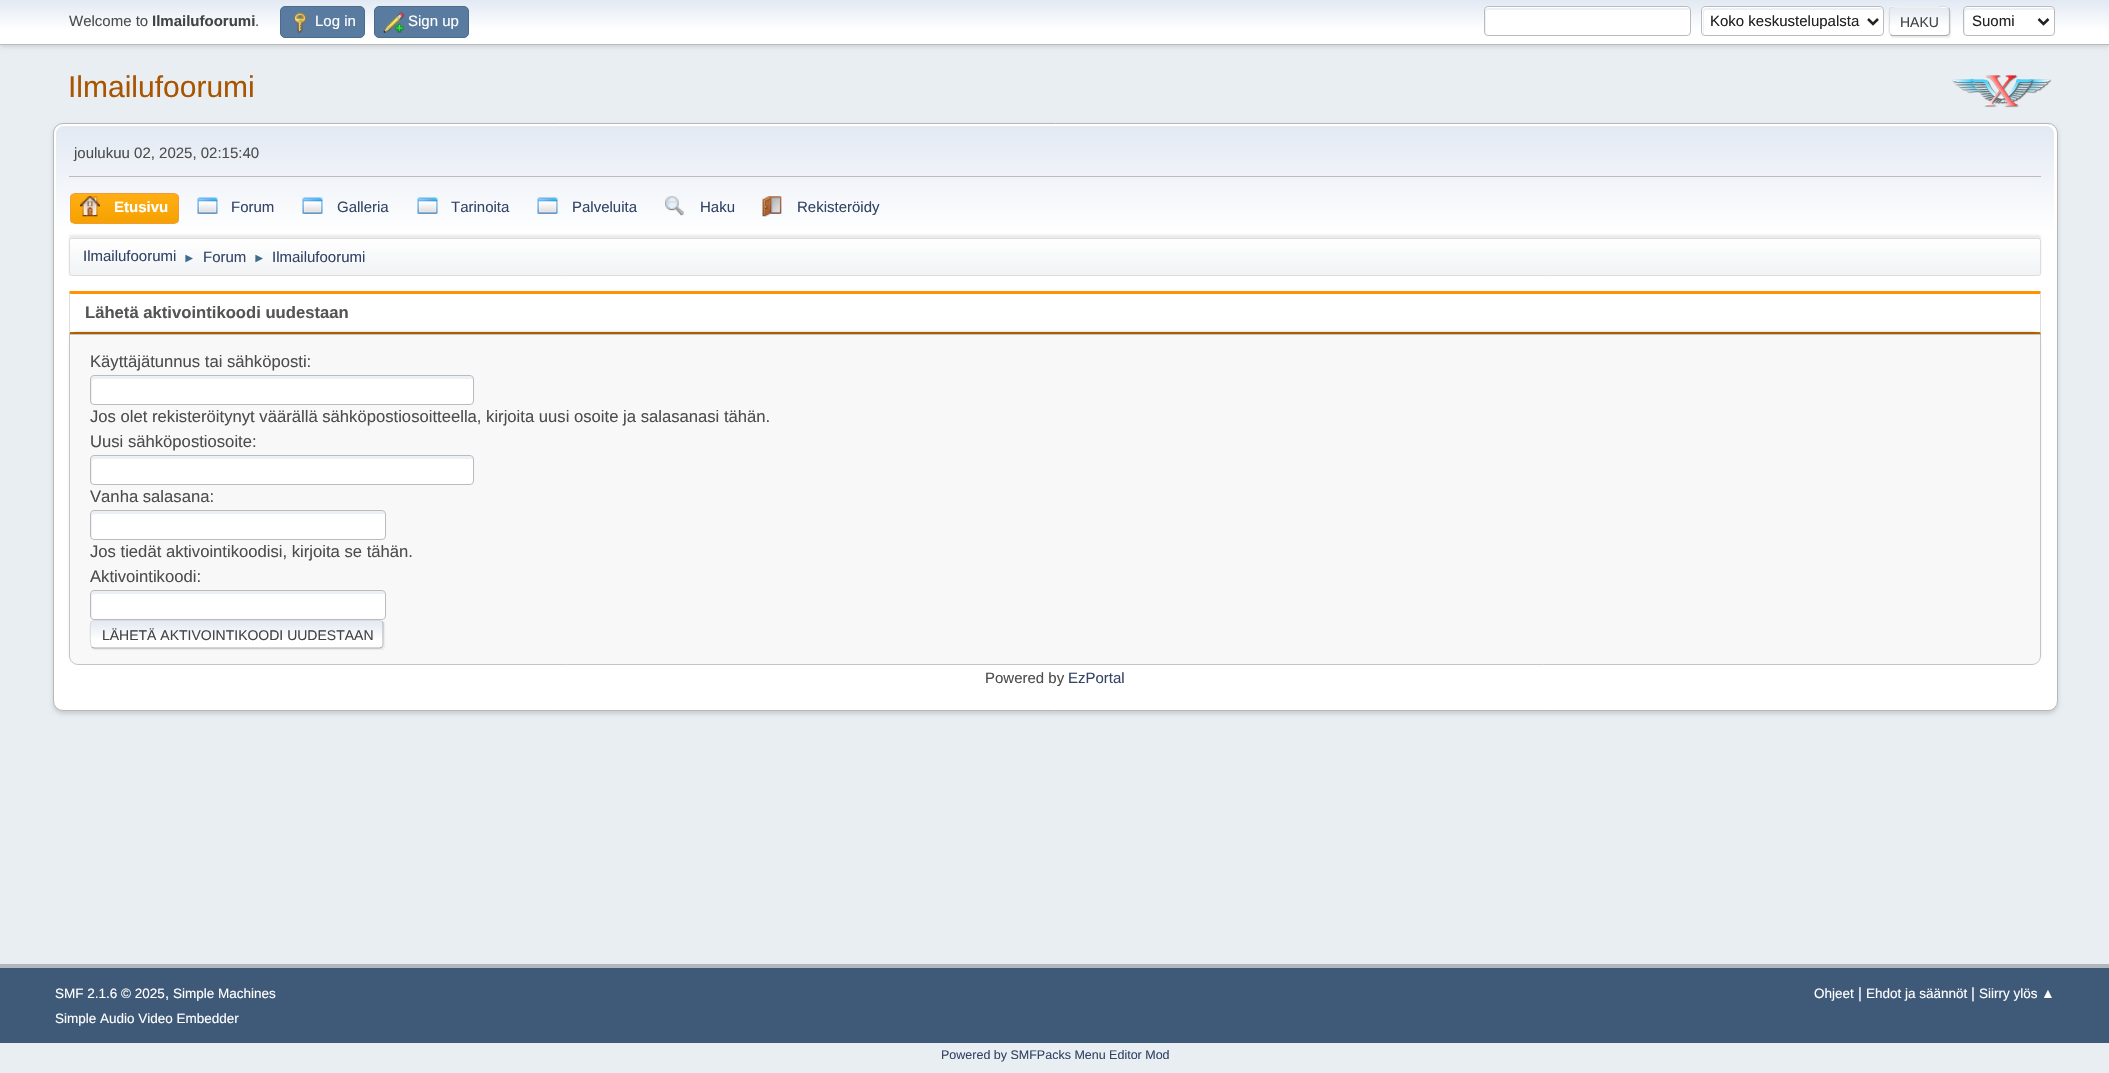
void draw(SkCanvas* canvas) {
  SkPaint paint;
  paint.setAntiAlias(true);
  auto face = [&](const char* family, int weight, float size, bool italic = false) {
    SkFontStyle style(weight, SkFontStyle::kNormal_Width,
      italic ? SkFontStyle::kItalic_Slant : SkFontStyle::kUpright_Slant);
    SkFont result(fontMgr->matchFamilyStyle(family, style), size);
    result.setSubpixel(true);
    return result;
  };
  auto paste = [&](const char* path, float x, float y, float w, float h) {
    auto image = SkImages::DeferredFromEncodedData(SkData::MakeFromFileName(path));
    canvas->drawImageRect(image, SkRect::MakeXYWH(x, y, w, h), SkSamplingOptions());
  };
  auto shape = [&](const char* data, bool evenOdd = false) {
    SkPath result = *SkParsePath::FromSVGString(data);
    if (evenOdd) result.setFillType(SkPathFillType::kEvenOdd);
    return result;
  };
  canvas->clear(0xffe9eef2);
  paint.setColor(0x29000000);
  paint.setMaskFilter(SkMaskFilter::MakeBlur(kNormal_SkBlurStyle, 2.5f));
  canvas->drawRect(SkRect::MakeXYWH(0, 1, 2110, 45), paint);
  paint.setMaskFilter(nullptr);
  {
    const SkColor colors[] = {0xffe2e9f3, 0xffffffff};
    const float stops[] = {0, 0.7f};
    const SkPoint ends[] = {{1055, 0}, {1055, 44}};
    paint.setShader(SkGradientShader::MakeLinear(ends, colors, stops, 2, SkTileMode::kClamp));
    paint.setAlpha(255);
  }
  canvas->drawRect(SkRect::MakeXYWH(0, 0, 2109, 44), paint);
  paint.setShader(nullptr);
  paint.setColor(0xffbbbbbb);
  canvas->drawRect(SkRect::MakeXYWH(0, 44, 2109, 1), paint);
  paint.setColor(0xff597b9f);
  canvas->drawRoundRect(SkRect::MakeXYWH(280.5f, 6.5f, 84, 31), 4.5f, 4.5f, paint);
  paint.setStroke(true);
  paint.setStrokeWidth(1);
  paint.setColor(0xff4a6b8c);
  canvas->drawRoundRect(SkRect::MakeXYWH(280.5f, 6.5f, 84, 31), 4.5f, 4.5f, paint);
  paste("img/1.png", 293, 12, 14, 21);
  paint.setStroke(false);
  paint.setColor(0xff597b9f);
  canvas->drawRoundRect(SkRect::MakeXYWH(374.5f, 6.5f, 94, 31), 4.5f, 4.5f, paint);
  paint.setStroke(true);
  paint.setColor(0xff4a6b8c);
  canvas->drawRoundRect(SkRect::MakeXYWH(374.5f, 6.5f, 94, 31), 4.5f, 4.5f, paint);
  paste("img/2.png", 383, 12, 21, 21);
  paint.setStroke(false);
  paint.setColor(0xffffffff);
  canvas->drawRoundRect(SkRect::MakeXYWH(1484, 6, 207, 30), 4, 4, paint);
  paint.setColor(0xffecf1f8);
  canvas->drawPath(shape("M1489 10H1690C1690 9 1689 8 1688 8H1488C1486 8 1485 9 1485 10V32C1485 33 1485 34 1486 35V12C1486 11 1487 10 1489 10Z"), paint);
  paint.setStroke(true);
  paint.setColor(0xffbbbbbb);
  canvas->drawRoundRect(SkRect::MakeXYWH(1484.5f, 6.5f, 206, 29), 3.5f, 3.5f, paint);
  paint.setStroke(false);
  paint.setColor(0xffffffff);
  canvas->drawRoundRect(SkRect::MakeXYWH(1701, 6, 183, 30), 4, 4, paint);
  paint.setColor(0xffecf1f8);
  canvas->drawPath(shape("M1706 10H1881H1883C1883 9 1882 8 1880 8H1706C1704 8 1703 9 1703 10V32C1703 33 1703 34 1704 35V12C1704 11 1705 10 1706 10Z"), paint);
  paint.setStroke(true);
  paint.setColor(0xffbbbbbb);
  canvas->drawRoundRect(SkRect::MakeXYWH(1701.5f, 6.5f, 182, 29), 3.5f, 3.5f, paint);
  paint.setStrokeWidth(2.5f);
  paint.setColor(0xff222222);
  canvas->drawPath(shape("M1868 19L1873 24L1878 19"), paint);
  paint.setStroke(false);
  paint.setColor(0x91dddddd);
  paint.setMaskFilter(SkMaskFilter::MakeBlur(kNormal_SkBlurStyle, 0.5f));
  canvas->drawRoundRect(SkRect::MakeXYWH(1890, 8, 61, 30), 4, 4, paint);
  paint.setMaskFilter(nullptr);
  canvas->save();
  canvas->clipPath(shape("M1893 6H1946C1948 6 1950 8 1950 10V32C1950 34 1948 36 1946 36H1893C1891 36 1889 34 1889 32V10C1889 8 1891 6 1893 6Z"), true);
  {
    const SkColor colors[] = {0xffe2e9f3, 0xffffffff};
    const float stops[] = {0, 0.7f};
    const SkPoint ends[] = {{1919, -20}, {1919, 7.5f}};
    paint.setShader(SkGradientShader::MakeLinear(ends, colors, stops, 2, SkTileMode::kClamp));
    paint.setAlpha(255);
  }
  canvas->drawRect(SkRect::MakeXYWH(1889, 6, 61, 2), paint);
  {
    const SkColor colors[] = {0xffe2e9f3, 0xffffffff};
    const float stops[] = {0, 0.7f};
    const SkPoint ends[] = {{1919, 7.5f}, {1919, 35}};
    paint.setShader(SkGradientShader::MakeLinear(ends, colors, stops, 2, SkTileMode::kClamp));
    paint.setAlpha(255);
  }
  canvas->drawRect(SkRect::MakeXYWH(1889, 8, 61, 27), paint);
  canvas->restore();
  paint.setStroke(true);
  paint.setStrokeWidth(1.2f);
  paint.setShader(nullptr);
  paint.setColor(0xffbbbbbb);
  canvas->drawPath(shape("M1948.5 8C1949 8.5 1949.5 9 1949.5 10V32.5C1949.5 33.5 1949 34 1948.5 34.5"), paint);
  paint.setColor(0xffaaaaaa);
  canvas->drawPath(shape("M1948.5 34.5L1946.5 35.5H1892L1890.5 34.5"), paint);
  paint.setColor(0xffdddddd);
  canvas->drawPath(shape("M1890.5 34.5C1888 32.5 1889.5 24 1889.5 21C1889.5 6 1886.5 7 1901.5 7H1937.5C1941 7 1946 5 1948.5 8"), paint);
  paint.setStroke(false);
  paint.setColor(0xffffffff);
  canvas->drawRoundRect(SkRect::MakeXYWH(1963, 6, 92, 30), 4, 4, paint);
  paint.setColor(0xffecf1f8);
  canvas->drawPath(shape("M1968 10H2052H2054C2054 9 2053 8 2052 8H1966C1965 8 1964 9 1964 10V32C1964 33 1964 34 1965 35V12C1965 11 1966 10 1968 10Z"), paint);
  paint.setStroke(true);
  paint.setStrokeWidth(1);
  paint.setColor(0xffbbbbbb);
  canvas->drawRoundRect(SkRect::MakeXYWH(1963.5f, 6.5f, 91, 29), 3.5f, 3.5f, paint);
  paint.setStrokeWidth(2.5f);
  paint.setColor(0xff222222);
  canvas->drawPath(shape("M2038.5 19L2043.5 24L2048.5 19"), paint);
  paste("img/3.png", 1952, 75, 100, 33);
  paint.setStroke(false);
  paint.setColor(0x24000000);
  paint.setMaskFilter(SkMaskFilter::MakeBlur(kNormal_SkBlurStyle, 2));
  canvas->drawRoundRect(SkRect::MakeXYWH(53, 125, 2005, 589), 10, 10, paint);
  paint.setMaskFilter(nullptr);
  paint.setColor(0xffffffff);
  canvas->drawRoundRect(SkRect::MakeXYWH(53.5f, 123.5f, 2004, 587), 9.5f, 9.5f, paint);
  paint.setStroke(true);
  paint.setStrokeWidth(1);
  paint.setColor(0xffb8b8b8);
  canvas->drawRoundRect(SkRect::MakeXYWH(53.5f, 123.5f, 2004, 587), 9.5f, 9.5f, paint);
  paint.setStroke(false);
  {
    const SkColor colors[] = {0xffe2e9f3, 0xffffffff};
    const float stops[] = {0, 0.7f};
    const SkPoint ends[] = {{1055, 126}, {1055, 279}};
    paint.setShader(SkGradientShader::MakeLinear(ends, colors, stops, 2, SkTileMode::kClamp));
    paint.setAlpha(255);
  }
  canvas->drawPath(shape("M64 126H2046C2050.5 126 2054 129.5 2054 134V279H56V134C56 129.5 59.5 126 64 126Z"), paint);
  paint.setShader(nullptr);
  paint.setColor(0xffbbbbbb);
  canvas->drawRect(SkRect::MakeXYWH(69, 176, 1972, 1), paint);
  canvas->save();
  canvas->clipPath(shape("M75 193H174C177 193 179 195 179 198V219C179 222 177 224 174 224H75C72 224 70 222 70 219V198C70 195 72 193 75 193Z"), true);
  {
    const SkColor colors[] = {0xffffae14, 0xfff5a100};
    const float stops[] = {0, 1};
    const SkPoint ends[] = {{124, 194}, {124, 223}};
    paint.setShader(SkGradientShader::MakeLinear(ends, colors, stops, 2, SkTileMode::kClamp));
    paint.setAlpha(255);
  }
  canvas->drawRect(SkRect::MakeXYWH(70, 194, 109, 29), paint);
  canvas->restore();
  paint.setStroke(true);
  paint.setShader(nullptr);
  paint.setColor(0xfff49a3a);
  canvas->drawRoundRect(SkRect::MakeXYWH(70.5f, 193.5f, 108, 30), 4.5f, 4.5f, paint);
  paste("img/4.png", 80, 196, 20, 21);
  paste("img/5.png", 197, 197, 21, 17);
  paste("img/5.png", 302, 197, 21, 17);
  paste("img/5.png", 417, 197, 21, 17);
  paste("img/6.png", 537, 197, 21, 17);
  paste("img/7.png", 665, 196, 19, 20);
  paste("img/8.png", 762, 196, 20, 21);
  paint.setStroke(false);
  paint.setColor(0x14000000);
  paint.setMaskFilter(SkMaskFilter::MakeBlur(kNormal_SkBlurStyle, 1));
  canvas->drawRoundRect(SkRect::MakeXYWH(69, 235, 1972, 39), 2.5f, 2.5f, paint);
  paint.setMaskFilter(nullptr);
  canvas->save();
  canvas->clipPath(shape("M71.5 238H2038.5C2040 238 2041 239 2041 240.5V273.5C2041 275 2040 276 2038.5 276H71.5C70 276 69 275 69 273.5V240.5C69 239 70 238 71.5 238Z"), true);
  {
    const SkColor colors[] = {0xffffffff, 0xfff1f3f5};
    const float stops[] = {0, 0.95f};
    const SkPoint ends[] = {{1055, 239}, {1055, 275}};
    paint.setShader(SkGradientShader::MakeLinear(ends, colors, stops, 2, SkTileMode::kClamp));
    paint.setAlpha(255);
  }
  canvas->drawRect(SkRect::MakeXYWH(69, 239, 1972, 36), paint);
  canvas->restore();
  paint.setStroke(true);
  paint.setShader(nullptr);
  paint.setColor(0xffdddddd);
  canvas->drawRoundRect(SkRect::MakeXYWH(69.5f, 238.5f, 1971, 37), 2, 2, paint);
  paint.setStroke(false);
  paint.setColor(0xffff9400);
  canvas->drawPath(shape("M69 292L70 291H2040L2041 292L2040 294H70Z"), paint);
  paint.setColor(0xffdddddd);
  canvas->drawPath(shape("M2041 292V334L2040 332V294Z"), paint);
  paint.setColor(0xffbf6900);
  canvas->drawPath(shape("M69 335H2041V334L2040 332H70Z"), paint);
  paint.setColor(0xffdddddd);
  canvas->drawPath(shape("M69 334V292L70 294V332Z"), paint);
  paint.setColor(0x1a000000);
  paint.setMaskFilter(SkMaskFilter::MakeBlur(kNormal_SkBlurStyle, 1));
  canvas->drawRoundRect(SkRect::MakeXYWH(69, 331, 1972, 332), 9, 9, paint);
  paint.setMaskFilter(nullptr);
  paint.setColor(0xfff8f8f8);
  canvas->drawPath(shape("M69.5 334.5H2040.5V656C2040.5 660.5 2036.5 664.5 2032 664.5H78C73.5 664.5 69.5 660.5 69.5 656Z"), paint);
  paint.setStroke(true);
  paint.setColor(0xffc5c5c5);
  canvas->drawPath(shape("M69.5 334.5H2040.5V656C2040.5 660.5 2036.5 664.5 2032 664.5H78C73.5 664.5 69.5 660.5 69.5 656Z"), paint);
  paint.setStroke(false);
  paint.setColor(0xffffffff);
  canvas->drawRoundRect(SkRect::MakeXYWH(90, 375, 384, 30), 4, 4, paint);
  paint.setColor(0xffecf1f8);
  canvas->drawPath(shape("M95 379H471H473V378C473 377 472 376 470 376H94C92 376 91 377 91 378V402C91 402 91 403 92 404V381C92 380 94 379 95 379Z"), paint);
  paint.setStroke(true);
  paint.setColor(0xffbbbbbb);
  canvas->drawRoundRect(SkRect::MakeXYWH(90.5f, 375.5f, 383, 29), 3.5f, 3.5f, paint);
  paint.setStroke(false);
  paint.setColor(0xffffffff);
  canvas->drawRoundRect(SkRect::MakeXYWH(90, 455, 384, 30), 4, 4, paint);
  paint.setColor(0xffecf1f8);
  canvas->drawPath(shape("M95 459H471H473V458C473 457 472 456 470 456H94C92 456 91 457 91 458V482C91 482 91 483 92 484V461C92 460 94 459 95 459Z"), paint);
  paint.setStroke(true);
  paint.setColor(0xffbbbbbb);
  canvas->drawRoundRect(SkRect::MakeXYWH(90.5f, 455.5f, 383, 29), 3.5f, 3.5f, paint);
  paint.setStroke(false);
  paint.setColor(0xffffffff);
  canvas->drawRoundRect(SkRect::MakeXYWH(90, 510, 296, 30), 4, 4, paint);
  paint.setColor(0xffecf1f8);
  canvas->drawPath(shape("M95 514H385C385 512 384 511 382 511H94C92 511 91 512 91 514V536C91 537 91 538 92 539V516C92 515 94 514 95 514Z"), paint);
  paint.setStroke(true);
  paint.setColor(0xffbbbbbb);
  canvas->drawRoundRect(SkRect::MakeXYWH(90.5f, 510.5f, 295, 29), 3.5f, 3.5f, paint);
  paint.setStroke(false);
  paint.setColor(0xffffffff);
  canvas->drawRoundRect(SkRect::MakeXYWH(90, 590, 296, 30), 4, 4, paint);
  paint.setColor(0xffecf1f8);
  canvas->drawPath(shape("M95 594H385C385 592 384 591 382 591H94C92 591 91 592 91 594V616C91 617 91 618 92 619V596C92 595 94 594 95 594Z"), paint);
  paint.setStroke(true);
  paint.setColor(0xffbbbbbb);
  canvas->drawRoundRect(SkRect::MakeXYWH(90.5f, 590.5f, 295, 29), 3.5f, 3.5f, paint);
  paint.setStroke(false);
  paint.setColor(0x91dddddd);
  paint.setMaskFilter(SkMaskFilter::MakeBlur(kNormal_SkBlurStyle, 0.5f));
  canvas->drawRoundRect(SkRect::MakeXYWH(91, 621, 294, 29), 4, 4, paint);
  paint.setMaskFilter(nullptr);
  canvas->save();
  canvas->clipPath(shape("M94 620H380C382 620 384 622 384 624V645C384 647 382 649 380 649H94C92 649 90 647 90 645V624C90 622 92 620 94 620Z"), true);
  {
    const SkColor colors[] = {0xffe2e9f3, 0xffffffff};
    const float stops[] = {0, 0.7f};
    const SkPoint ends[] = {{237, 595}, {237, 621}};
    paint.setShader(SkGradientShader::MakeLinear(ends, colors, stops, 2, SkTileMode::kClamp));
    paint.setAlpha(255);
  }
  canvas->drawRect(SkRect::MakeXYWH(90, 620, 294, 1), paint);
  {
    const SkColor colors[] = {0xffe2e9f3, 0xffffffff};
    const float stops[] = {0, 0.7f};
    const SkPoint ends[] = {{237, 621}, {237, 648}};
    paint.setShader(SkGradientShader::MakeLinear(ends, colors, stops, 2, SkTileMode::kClamp));
    paint.setAlpha(255);
  }
  canvas->drawRect(SkRect::MakeXYWH(90, 621, 294, 27), paint);
  {
    const SkColor colors[] = {0xffe2e9f3, 0xffffffff};
    const float stops[] = {0, 0.7f};
    const SkPoint ends[] = {{237, 648}, {237, 674}};
    paint.setShader(SkGradientShader::MakeLinear(ends, colors, stops, 2, SkTileMode::kClamp));
    paint.setAlpha(255);
  }
  canvas->drawRect(SkRect::MakeXYWH(90, 648, 294, 1), paint);
  canvas->restore();
  paint.setStroke(true);
  paint.setStrokeWidth(1.2f);
  paint.setShader(nullptr);
  paint.setColor(0xffbbbbbb);
  canvas->drawPath(shape("M382 621.5C383 622 383 623 383 624V645C383 646 383 646.5 382 647"), paint);
  paint.setColor(0xffaaaaaa);
  canvas->drawPath(shape("M382 647L380 648H94L91.5 647"), paint);
  paint.setColor(0xffdddddd);
  canvas->drawPath(shape("M91.5 647C90 645.5 90 623.5 91 622C91.5 621 92.5 620.5 94 620.5H380L382 621.5"), paint);
  paint.setStroke(false);
  paint.setColor(0xff3e5a78);
  canvas->drawRect(SkRect::MakeXYWH(0, 968, 2109, 75), paint);
  paint.setColor(0xffb2b6bd);
  canvas->drawRect(SkRect::MakeXYWH(0, 964, 2109, 4), paint);
  auto f0 = face("Liberation Sans", 400, 15);
  paint.setColor(0xff4d4d4d);
  canvas->drawString("Welcome to", 69, 26, f0, paint);
  auto f1 = face("Liberation Sans", 700, 15);
  paint.setColor(0xff444444);
  canvas->drawString("Ilmailufoorumi", 152, 26, f1, paint);
  paint.setColor(0xff4d4d4d);
  canvas->drawString(".", 255, 26, f0, paint);
  paint.setColor(0xffffffff);
  canvas->drawString("Log in", 315, 26, f0, paint);
  canvas->drawString("Sign up", 408, 26, f0, paint);
  paint.setColor(0xff222222);
  canvas->drawString("Koko keskustelupalsta", 1710, 26, f0, paint);
  auto f2 = face("Liberation Sans", 400, 14);
  paint.setColor(0xff444444);
  canvas->drawString("HAKU", 1900, 27, f2, paint);
  paint.setColor(0xff222222);
  canvas->drawString("Suomi", 1972, 26, f0, paint);
  auto f3 = face("Liberation Sans", 400, 30);
  paint.setColor(0xffa85400);
  canvas->drawString("Ilmailufoorumi", 68, 97, f3, paint);
  paint.setColor(0xff4d4d4d);
  canvas->drawString("joulukuu 02, 2025, 02:15:40", 74, 158, f0, paint);
  paint.setColor(0xffffffff);
  canvas->drawString("Etusivu", 114, 212, f1, paint);
  paint.setColor(0xff334466);
  {
    const struct { const char* s; float x, y; } items[] = {
      {"Forum", 231, 212},
      {"Galleria", 337, 212},
      {"Tarinoita", 451, 212},
      {"Palveluita", 572, 212},
      {"Haku", 700, 212},
      {"Rekisteröidy", 797, 212},
      {"Ilmailufoorumi", 83, 261},
    };
    for (auto [s, x, y] : items) {
      canvas->drawString(s, x, y, f0, paint);
    }
  }
  auto f4 = face("Liberation Sans", 400, 12.5f);
  paint.setColor(0xff3f6b8c);
  canvas->drawString("►", 183, 262, f4, paint);
  paint.setColor(0xff334466);
  canvas->drawString("Forum", 203, 262, f0, paint);
  paint.setColor(0xff3f6b8c);
  canvas->drawString("►", 253, 262, f4, paint);
  paint.setColor(0xff334466);
  canvas->drawString("Ilmailufoorumi", 272, 262, f0, paint);
  auto f5 = face("Liberation Sans", 700, 16.65f);
  paint.setColor(0xff555555);
  canvas->drawString("Lähetä aktivointikoodi uudestaan", 85, 318, f5, paint);
  auto f6 = face("Liberation Sans", 400, 16.65f);
  paint.setColor(0xff4d4d4d);
  {
    const struct { const char* s; float x, y; } items[] = {
      {"Käyttäjätunnus tai sähköposti:", 90, 367},
      {"Jos olet rekisteröitynyt väärällä sähköpostiosoitteella, kirjoita uusi osoite ja salasanasi tähän.", 90, 422},
      {"Uusi sähköpostiosoite:", 90, 447},
      {"Vanha salasana:", 90, 502},
      {"Jos tiedät aktivointikoodisi, kirjoita se tähän.", 90, 557},
      {"Aktivointikoodi:", 90, 582},
    };
    for (auto [s, x, y] : items) {
      canvas->drawString(s, x, y, f6, paint);
    }
  }
  paint.setColor(0xff444444);
  canvas->drawString("LÄHETÄ AKTIVOINTIKOODI UUDESTAAN", 102, 640, f2, paint);
  paint.setColor(0xff4d4d4d);
  canvas->drawString("Powered by", 985, 683, f0, paint);
  paint.setColor(0xff334466);
  canvas->drawString("EzPortal", 1068, 683, f0, paint);
  auto f7 = face("Liberation Sans", 400, 13.5f);
  paint.setColor(0xffffffff);
  canvas->drawString("SMF 2.1.6 © 2025", 55, 998, f7, paint);
  canvas->drawString(",", 165, 998, f0, paint);
  {
    const struct { const char* s; float x, y; } items[] = {
      {"Simple Machines", 173, 998},
      {"Simple Audio Video Embedder", 55, 1023},
      {"Ohjeet", 1814, 998},
    };
    for (auto [s, x, y] : items) {
      canvas->drawString(s, x, y, f7, paint);
    }
  }
  canvas->drawString("|", 1858, 998, f0, paint);
  canvas->drawString("Ehdot ja säännöt", 1866, 998, f7, paint);
  canvas->drawString("|", 1971, 998, f0, paint);
  canvas->drawString("Siirry ylös ▲", 1979, 998, f7, paint);
  paint.setColor(0xff334466);
  canvas->drawString("Powered by SMFPacks Menu Editor Mod", 941, 1059, f4, paint);
}
